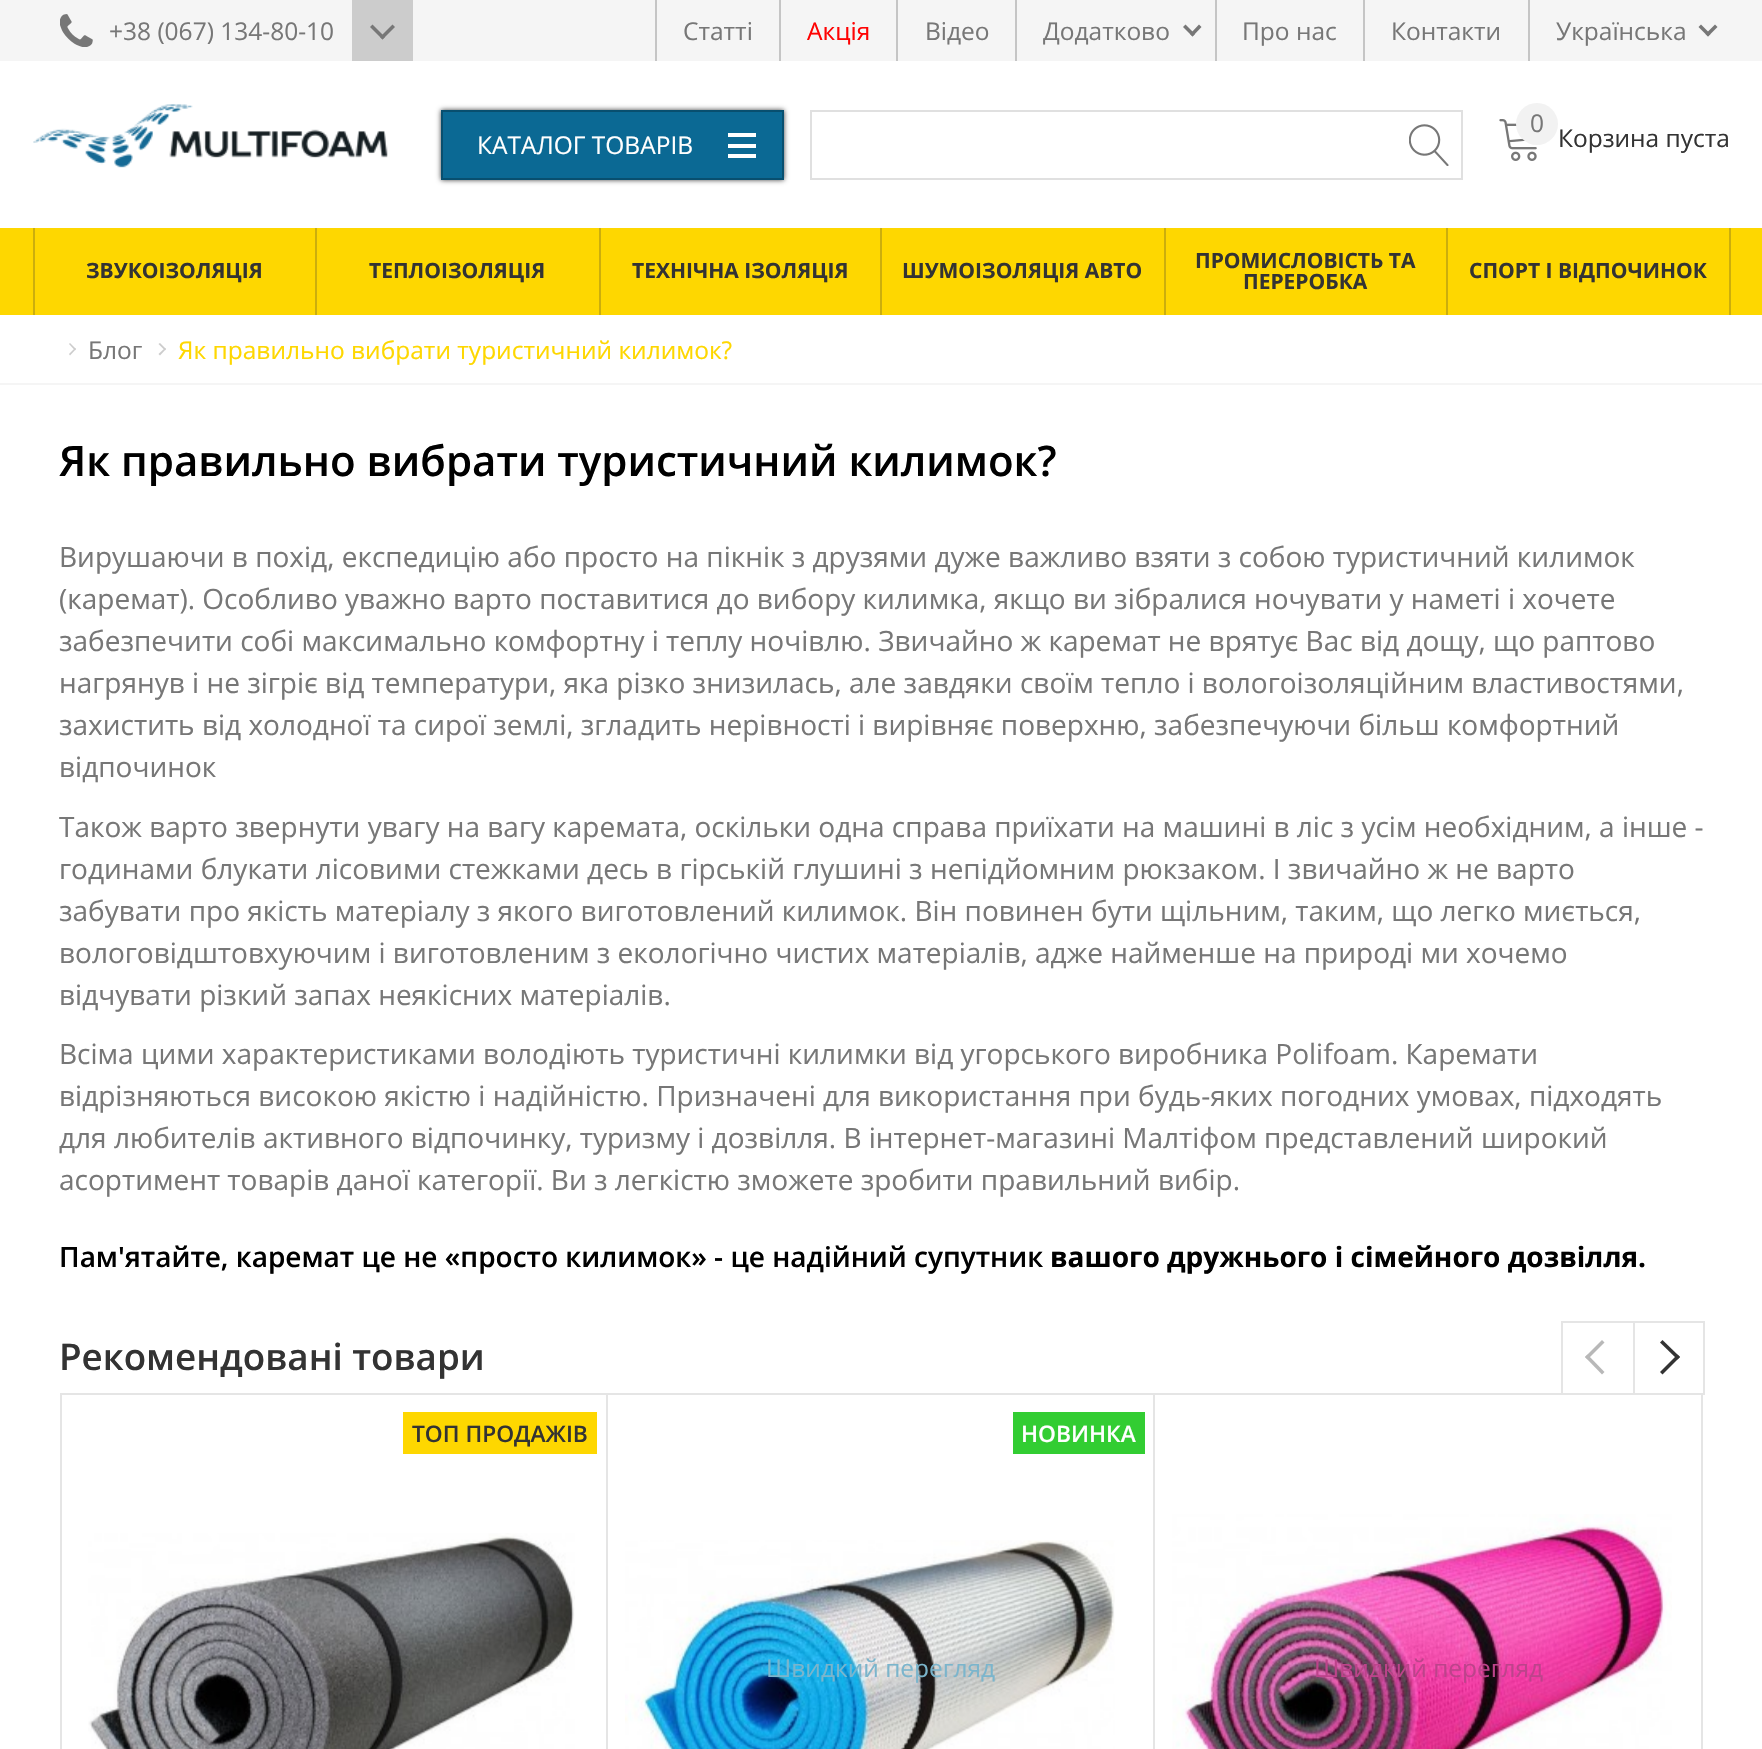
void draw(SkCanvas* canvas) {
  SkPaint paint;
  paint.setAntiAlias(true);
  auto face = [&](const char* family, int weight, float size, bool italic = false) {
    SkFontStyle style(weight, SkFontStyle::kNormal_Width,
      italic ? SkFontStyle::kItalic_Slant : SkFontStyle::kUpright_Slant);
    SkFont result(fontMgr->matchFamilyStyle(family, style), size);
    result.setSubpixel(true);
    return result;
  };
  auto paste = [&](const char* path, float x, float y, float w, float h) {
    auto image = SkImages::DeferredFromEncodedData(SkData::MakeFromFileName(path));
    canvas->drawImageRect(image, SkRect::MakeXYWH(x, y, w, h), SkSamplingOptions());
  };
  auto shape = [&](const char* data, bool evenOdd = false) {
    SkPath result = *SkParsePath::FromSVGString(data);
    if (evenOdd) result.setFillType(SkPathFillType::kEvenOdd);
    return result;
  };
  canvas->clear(0xffffffff);
  paint.setColor(0xfff5f5f5);
  canvas->drawRect(SkRect::MakeXYWH(0, 0, 1762, 61), paint);
  paste("img/1.png", 60, 14, 33, 33);
  paint.setColor(0xffcccccc);
  canvas->drawRect(SkRect::MakeXYWH(352, 0, 61, 61), paint);
  paint.setColor(0xff777777);
  canvas->drawPath(shape("M392.5 24.5L395 27L382.5 39.5L380 37Z"), paint);
  canvas->drawPath(shape("M372.5 24.5L385 37L382.5 39.5L370 27Z"), paint);
  {
    const struct { float x, y, w, h; SkColor color; } items[] = {
      {655, 0, 2, 61, 0xffc5c5c5},
      {779, 0, 2, 61, 0xffc5c5c5},
      {896, 0, 2, 61, 0xffc5c5c5},
      {1015, 0, 2, 61, 0xffc5c5c5},
    };
    for (auto [x, y, w, h, color] : items) {
      paint.setColor(color);
      canvas->drawRect(SkRect::MakeXYWH(x, y, w, h), paint);
    }
  }
  paint.setColor(0xff777777);
  canvas->drawPath(shape("M1199 24.5L1201.5 27L1192.5 36.5L1190 34Z"), paint);
  canvas->drawPath(shape("M1185.5 24.5L1195 34L1192.5 36.5L1183 27Z"), paint);
  {
    const struct { float x, y, w, h; SkColor color; } items[] = {
      {1215, 0, 2, 61, 0xffc5c5c5},
      {1363, 0, 2, 61, 0xffc5c5c5},
      {1528, 0, 2, 61, 0xffc5c5c5},
    };
    for (auto [x, y, w, h, color] : items) {
      paint.setColor(color);
      canvas->drawRect(SkRect::MakeXYWH(x, y, w, h), paint);
    }
  }
  paint.setColor(0xff777777);
  canvas->drawPath(shape("M1715 24.5L1717.5 27L1708 36.5L1705.5 34Z"), paint);
  canvas->drawPath(shape("M1701 24.5L1710.5 34L1708 36.5L1698.5 27Z"), paint);
  paste("img/2.png", 33, 104, 355, 64);
  paint.setColor(0xbf000000);
  paint.setMaskFilter(SkMaskFilter::MakeBlur(kNormal_SkBlurStyle, 2.5f));
  canvas->drawRect(SkRect::MakeXYWH(441, 110, 343, 70), paint);
  paint.setMaskFilter(nullptr);
  paint.setColor(0xff0b6994);
  canvas->drawRect(SkRect::MakeXYWH(442, 111, 341, 68), paint);
  paint.setStroke(true);
  paint.setStrokeWidth(2);
  paint.setColor(0xff084f6f);
  canvas->drawRect(SkRect::MakeXYWH(442, 111, 341, 68), paint);
  paint.setStroke(false);
  {
    const struct { float x, y, w, h; SkColor color; } items[] = {
      {728, 144, 28, 4, 0xffffffff},
      {728, 133, 28, 4, 0xffffffff},
      {728, 154, 28, 4, 0xffffffff},
    };
    for (auto [x, y, w, h, color] : items) {
      paint.setColor(color);
      canvas->drawRect(SkRect::MakeXYWH(x, y, w, h), paint);
    }
  }
  paint.setStroke(true);
  paint.setColor(0xffe0e0e0);
  canvas->drawRect(SkRect::MakeXYWH(811, 111, 651, 68), paint);
  paste("img/3.png", 1409, 124, 40, 42);
  paste("img/4.png", 1499, 119, 38, 42);
  paint.setStroke(false);
  paint.setColor(0xfff2f2f2);
  canvas->drawCircle(1537, 124, 21, paint);
  {
    const struct { float x, y, w, h; SkColor color; } items[] = {
      {0, 228, 1762, 87, 0xfffed700},
      {315, 228, 2, 87, 0xffcbae0d},
      {33, 228, 2, 87, 0xffcbae0d},
      {599, 228, 2, 87, 0xffcbae0d},
      {880, 228, 2, 87, 0xffcbae0d},
      {1164, 228, 2, 87, 0xffcbae0d},
      {1446, 228, 2, 87, 0xffcbae0d},
      {1729, 228, 2, 87, 0xffcbae0d},
      {0, 383, 1762, 2, 0xfff5f5f5},
    };
    for (auto [x, y, w, h, color] : items) {
      paint.setColor(color);
      canvas->drawRect(SkRect::MakeXYWH(x, y, w, h), paint);
    }
  }
  paint.setColor(0xffcccccc);
  canvas->drawPath(shape("M69 344L70 343L76 349L75 350.5Z"), paint);
  canvas->drawPath(shape("M69 354L75 348L76 349L70 355.5Z"), paint);
  canvas->drawPath(shape("M158.5 344L160 343L166 349L165 350.5Z"), paint);
  canvas->drawPath(shape("M158.5 354L165 348L166 349L160 355.5Z"), paint);
  {
    const struct { float x, y, w, h; SkColor color; } items[] = {
      {60, 1393, 1645, 2, 0xffe5e5e5},
      {1561, 1321, 144, 2, 0xffe5e5e5},
      {1703, 1321, 2, 72, 0xffe5e5e5},
      {1561, 1321, 2, 72, 0xffe5e5e5},
    };
    for (auto [x, y, w, h, color] : items) {
      paint.setColor(color);
      canvas->drawRect(SkRect::MakeXYWH(x, y, w, h), paint);
    }
  }
  paint.setColor(0xffb8b8b8);
  canvas->drawPath(shape("M1604.5 1372L1602 1374.5L1585 1357L1587.5 1354.5Z"), paint);
  canvas->drawPath(shape("M1604.5 1342.5L1587.5 1359.5L1585 1357L1602 1340Z"), paint);
  paint.setColor(0xffe5e5e5);
  canvas->drawRect(SkRect::MakeXYWH(1633, 1323, 2, 70), paint);
  paint.setColor(0xff333333);
  canvas->drawPath(shape("M1660 1342.5L1662.5 1340L1680 1357L1677.5 1359.5Z"), paint);
  canvas->drawPath(shape("M1660 1372L1677.5 1354.5L1680 1357L1662.5 1374.5Z"), paint);
  {
    const struct { float x, y, w, h; SkColor color; } items[] = {
      {606, 1395, 2, 354, 0xffe5e5e5},
      {60, 1395, 2, 354, 0xffe5e5e5},
      {403, 1412, 194, 42, 0xfffed700},
    };
    for (auto [x, y, w, h, color] : items) {
      paint.setColor(color);
      canvas->drawRect(SkRect::MakeXYWH(x, y, w, h), paint);
    }
  }
  paste("img/5.png", 88, 1533, 487, 216);
  paint.setColor(0xffe5e5e5);
  canvas->drawRect(SkRect::MakeXYWH(1153, 1395, 2, 354), paint);
  paint.setColor(0xff32cd32);
  canvas->drawRect(SkRect::MakeXYWH(1013, 1412, 132, 42), paint);
  paste("img/6.png", 625, 1540, 490, 209);
  paint.setColor(0xffe5e5e5);
  canvas->drawRect(SkRect::MakeXYWH(1701, 1395, 2, 354), paint);
  paste("img/7.png", 1172, 1514, 500, 235);
  auto f0 = face("Open Sans", 400, 24.5f);
  paint.setColor(0xff777777);
  canvas->drawString("+38 (067) 134-80-10", 109, 40, f0, paint);
  canvas->drawString("Статті", 683, 40, f0, paint);
  paint.setColor(0xffff0202);
  canvas->drawString("Акція", 807, 40, f0, paint);
  paint.setColor(0xff777777);
  {
    const struct { const char* s; float x, y; } items[] = {
      {"Відео", 925, 40},
      {"Додатково", 1043, 40},
      {"Про нас", 1242, 40},
      {"Контакти", 1391, 40},
      {"Українська", 1556, 40},
    };
    for (auto [s, x, y] : items) {
      canvas->drawString(s, x, y, f0, paint);
    }
  }
  paint.setColor(0xffffffff);
  canvas->drawString("КАТАЛОГ ТОВАРІВ", 477, 154, f0, paint);
  paint.setColor(0xff777777);
  canvas->drawString("0", 1530, 132, f0, paint);
  paint.setColor(0xff333333);
  canvas->drawString("Корзина пуста", 1558, 147, f0, paint);
  auto f1 = face("Open Sans", 700, 21);
  {
    const struct { const char* s; float x, y; } items[] = {
      {"ЗВУКОІЗОЛЯЦІЯ", 86, 278},
      {"ТЕПЛОІЗОЛЯЦІЯ", 369, 278},
      {"ТЕХНІЧНА ІЗОЛЯЦІЯ", 632, 278},
      {"ШУМОІЗОЛЯЦІЯ АВТО", 902, 278},
      {"ПРОМИСЛОВІСТЬ ТА", 1195, 268},
      {"ПЕРЕРОБКА", 1243, 289},
      {"СПОРТ І ВІДПОЧИНОК", 1469, 278},
    };
    for (auto [s, x, y] : items) {
      canvas->drawString(s, x, y, f1, paint);
    }
  }
  paint.setColor(0xff777777);
  canvas->drawString("Блог", 88, 359, f0, paint);
  paint.setColor(0xfffed700);
  canvas->drawString("Як правильно вибрати туристичний килимок?", 178, 359, f0, paint);
  auto f2 = face("Open Sans", 600, 42);
  paint.setColor(0xff000000);
  canvas->drawString("Як правильно вибрати туристичний килимок?", 59, 476, f2, paint);
  auto f3 = face("Open Sans", 400, 28);
  paint.setColor(0xff777777);
  {
    const struct { const char* s; float x, y; } items[] = {
      {"Вирушаючи в похід, експедицію або просто на пікнік з друзями дуже важливо взяти з собою туристичний килимок", 59, 567},
      {"(каремат). Особливо уважно варто поставитися до вибору килимка, якщо ви зібралися ночувати у наметі і хочете", 59, 609},
      {"забезпечити собі максимально комфортну і теплу ночівлю. Звичайно ж каремат не врятує Вас від дощу, що раптово", 59, 651},
      {"нагрянув і не зігріє від температури, яка різко знизилась, але завдяки своїм тепло і вологоізоляційним властивостями,", 59, 693},
      {"захистить від холодної та сирої землі, згладить нерівності і вирівняє поверхню, забезпечуючи більш комфортний", 59, 735},
      {"відпочинок", 59, 777},
      {"Також варто звернути увагу на вагу каремата, оскільки одна справа приїхати на машині в ліс з усім необхідним, а інше -", 59, 837},
      {"годинами блукати лісовими стежками десь в гірській глушині з непідйомним рюкзаком. І звичайно ж не варто", 59, 879},
      {"забувати про якість матеріалу з якого виготовлений килимок. Він повинен бути щільним, таким, що легко миється,", 59, 921},
      {"вологовідштовхуючим і виготовленим з екологічно чистих матеріалів, адже найменше на природі ми хочемо", 59, 963},
      {"відчувати різкий запах неякісних матеріалів.", 59, 1005},
      {"Всіма цими характеристиками володіють туристичні килимки від угорського виробника Polifoam. Каремати", 59, 1064},
      {"відрізняються високою якістю і надійністю. Призначені для використання при будь-яких погодних умовах, підходять", 59, 1106},
      {"для любителів активного відпочинку, туризму і дозвілля. В інтернет-магазині Малтіфом представлений широкий", 59, 1148},
      {"асортимент товарів даної категорії. Ви з легкістю зможете зробити правильний вибір.", 59, 1190},
    };
    for (auto [s, x, y] : items) {
      canvas->drawString(s, x, y, f3, paint);
    }
  }
  auto f4 = face("Open Sans", 600, 28);
  paint.setColor(0xff000000);
  canvas->drawString("Пам'ятайте, каремат це не «просто килимок» - це надійний супутник", 59, 1267, f4, paint);
  auto f5 = face("Open Sans", 700, 28);
  canvas->drawString("вашого дружнього і сімейного дозвілля.", 1050, 1267, f5, paint);
  auto f6 = face("Open Sans", 600, 36.75f);
  paint.setColor(0xff333333);
  canvas->drawString("Рекомендовані товари", 59, 1370, f6, paint);
  auto f7 = face("Open Sans", 600, 22.75f);
  canvas->drawString("ТОП ПРОДАЖІВ", 412, 1442, f7, paint);
  paint.setColor(0xffffffff);
  canvas->drawString("НОВИНКА", 1021, 1442, f7, paint);
  paint.setColor(0xff7bb5cc);
  canvas->drawString("Швидкий перегляд", 766, 1677, f0, paint);
  paint.setColor(0xffbd438b);
  canvas->drawString("Швидкий перегляд", 1314, 1677, f0, paint);
}
